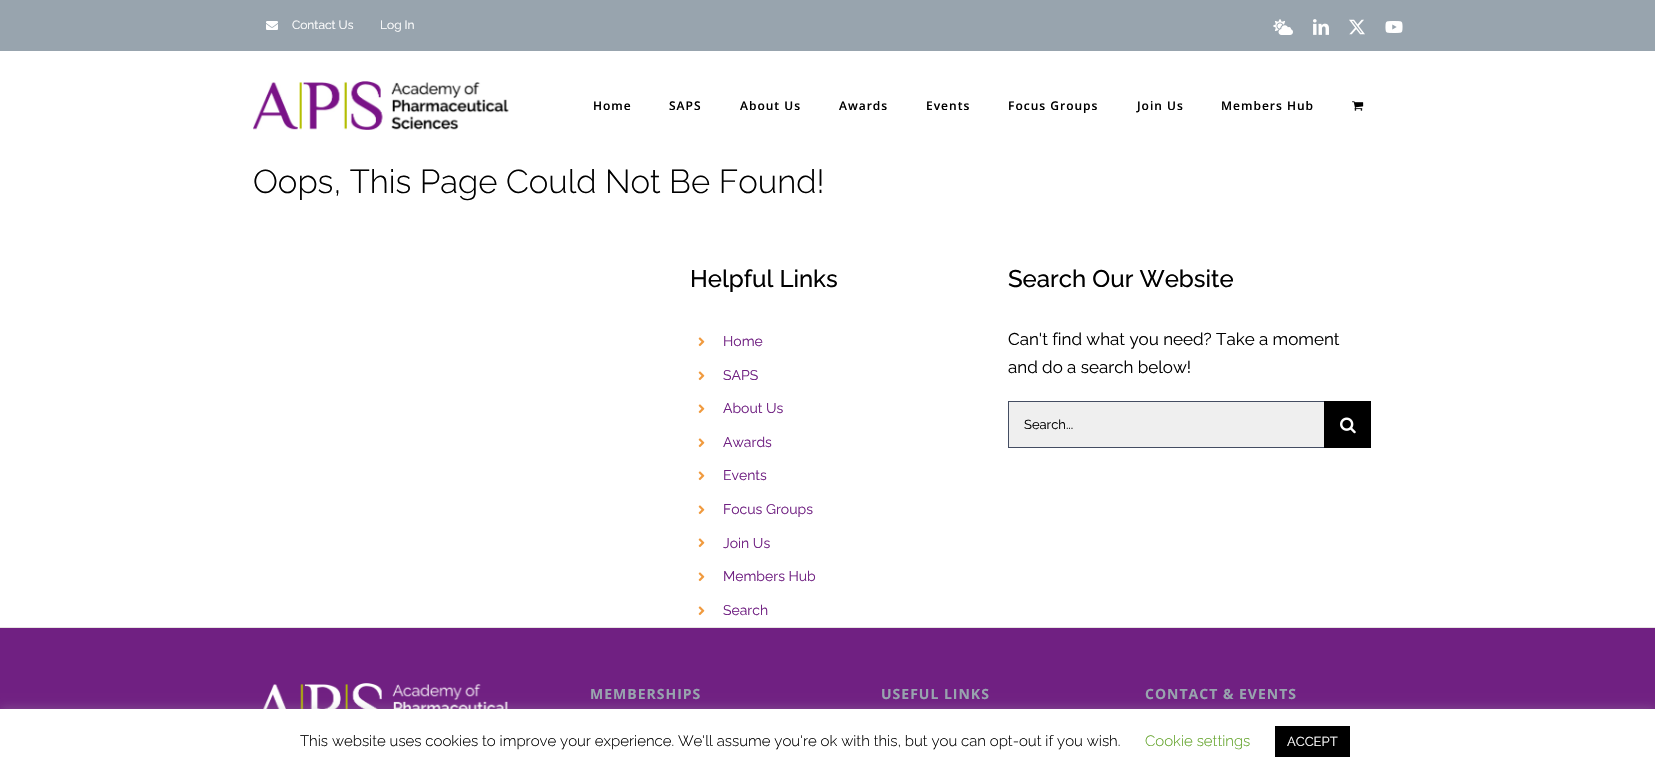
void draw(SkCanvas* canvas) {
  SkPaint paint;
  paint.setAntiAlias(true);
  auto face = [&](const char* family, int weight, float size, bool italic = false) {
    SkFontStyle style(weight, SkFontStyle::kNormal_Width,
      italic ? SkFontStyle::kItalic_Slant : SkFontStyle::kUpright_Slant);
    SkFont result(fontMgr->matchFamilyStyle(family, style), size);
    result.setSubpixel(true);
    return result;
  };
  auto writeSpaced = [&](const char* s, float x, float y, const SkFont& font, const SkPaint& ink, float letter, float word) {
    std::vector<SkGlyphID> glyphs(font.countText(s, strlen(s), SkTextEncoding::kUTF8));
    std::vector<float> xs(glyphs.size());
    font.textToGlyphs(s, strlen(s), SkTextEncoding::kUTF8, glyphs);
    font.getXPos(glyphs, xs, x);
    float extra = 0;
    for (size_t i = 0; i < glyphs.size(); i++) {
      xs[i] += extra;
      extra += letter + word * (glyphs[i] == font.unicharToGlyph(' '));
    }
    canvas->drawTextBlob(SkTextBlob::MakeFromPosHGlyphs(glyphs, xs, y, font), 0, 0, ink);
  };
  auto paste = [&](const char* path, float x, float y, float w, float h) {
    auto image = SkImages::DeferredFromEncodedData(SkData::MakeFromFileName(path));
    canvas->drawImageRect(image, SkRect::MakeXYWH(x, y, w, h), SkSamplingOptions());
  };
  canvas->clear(0xffffffff);
  paint.setColor(0xff98a4ae);
  canvas->drawRect(SkRect::MakeXYWH(0, 0, 1655, 51), paint);
  paste("img/1.png", 266, 21, 12, 9);
  paste("img/2.png", 1273, 19, 20, 16);
  paste("img/3.png", 1313, 19, 16, 16);
  paste("img/4.png", 1349, 19, 16, 16);
  paste("img/5.png", 1385, 21, 18, 12);
  paste("img/6.png", 253, 81, 256, 49);
  paste("img/7.png", 1352, 101, 12, 10);
  paste("img/8.png", 698, 337, 7, 10);
  paste("img/8.png", 698, 371, 7, 10);
  paste("img/8.png", 698, 404, 7, 10);
  paste("img/8.png", 698, 438, 7, 10);
  paste("img/8.png", 698, 471, 7, 10);
  paste("img/8.png", 698, 505, 7, 10);
  paste("img/8.png", 698, 538, 7, 10);
  paste("img/8.png", 698, 572, 7, 10);
  paste("img/8.png", 698, 606, 7, 10);
  {
    const struct { float x, y, w, h; SkColor color; } items[] = {
      {1009, 402, 315, 45, 0xffefefef},
      {1008, 401, 316, 1, 0xff444d62},
      {1008, 447, 316, 1, 0xff444d62},
      {1008, 401, 1, 47, 0xff444d62},
      {1324, 401, 47, 47, 0xff000000},
    };
    for (auto [x, y, w, h, color] : items) {
      paint.setColor(color);
      canvas->drawRect(SkRect::MakeXYWH(x, y, w, h), paint);
    }
  }
  paste("img/9.png", 1340, 417, 16, 17);
  paint.setColor(0xff702082);
  canvas->drawRect(SkRect::MakeXYWH(0, 628, 1655, 81), paint);
  paint.setColor(0xffe7e4e2);
  canvas->drawRect(SkRect::MakeXYWH(0, 627, 1655, 1), paint);
  paste("img/10.png", 263, 683, 245, 26);
  paint.setColor(0x4dacabab);
  paint.setMaskFilter(SkMaskFilter::MakeBlur(kNormal_SkBlurStyle, 5));
  canvas->drawRect(SkRect::MakeXYWH(0, 708, 1655, 65), paint);
  paint.setMaskFilter(nullptr);
  paint.setColor(0xffffffff);
  canvas->drawRect(SkRect::MakeXYWH(0, 709, 1655, 65), paint);
  paint.setColor(0xff000000);
  canvas->drawRect(SkRect::MakeXYWH(1275, 726, 75, 31), paint);
  auto f0 = face("Raleway", 400, 12);
  paint.setColor(0xffffffff);
  canvas->drawString("Contact Us", 292, 29, f0, paint);
  canvas->drawString("Log In", 380, 29, f0, paint);
  auto f1 = face("Open Sans", 600, 12);
  paint.setColor(0xff000000);
  {
    const struct { const char* s; float x, y; } items[] = {
      {"Home", 593, 110},
      {"SAPS", 669, 110},
      {"About Us", 740, 110},
      {"Awards", 839, 110},
      {"Events", 926, 110},
      {"Focus Groups", 1008, 110},
      {"Join Us", 1137, 110},
      {"Members Hub", 1221, 110},
    };
    for (auto [s, x, y] : items) {
      writeSpaced(s, x, y, f1, paint, 1, 0);
    }
  }
  auto f2 = face("Raleway", 300, 33);
  canvas->drawString("Oops, This Page Could Not Be Found!", 253, 193, f2, paint);
  auto f3 = face("Raleway", 500, 24);
  canvas->drawString("Helpful Links", 690, 287, f3, paint);
  auto f4 = face("Raleway", 400, 14);
  paint.setColor(0xff702082);
  {
    const struct { const char* s; float x, y; } items[] = {
      {"Home", 723, 346},
      {"SAPS", 723, 380},
      {"About Us", 723, 413},
      {"Awards", 723, 447},
      {"Events", 723, 480},
      {"Focus Groups", 723, 514},
      {"Join Us", 723, 548},
      {"Members Hub", 723, 581},
      {"Search", 723, 615},
    };
    for (auto [s, x, y] : items) {
      canvas->drawString(s, x, y, f4, paint);
    }
  }
  paint.setColor(0xff000000);
  canvas->drawString("Search Our Website", 1008, 287, f3, paint);
  auto f5 = face("Raleway", 400, 17);
  canvas->drawString("Can't find what you need? Take a moment", 1008, 345, f5, paint);
  canvas->drawString("and do a search below!", 1008, 373, f5, paint);
  auto f6 = face("Raleway", 400, 13);
  canvas->drawString("Search...", 1024, 429, f6, paint);
  auto f7 = face("Open Sans", 700, 14);
  paint.setColor(0xff98a4ae);
  {
    const struct { const char* s; float x, y; } items[] = {
      {"MEMBERSHIPS", 590, 699},
      {"USEFUL LINKS", 881, 699},
      {"CONTACT & EVENTS", 1145, 699},
    };
    for (auto [s, x, y] : items) {
      writeSpaced(s, x, y, f7, paint, 1, 0);
    }
  }
  auto f8 = face("Raleway", 300, 15);
  paint.setColor(0xff000000);
  canvas->drawString("This website uses cookies to improve your experience. We'll assume you're ok with this, but you can opt-out if you wish.", 300, 746, f8, paint);
  paint.setColor(0xff62a329);
  canvas->drawString("Cookie settings", 1145, 746, f8, paint);
  paint.setColor(0xffffffff);
  canvas->drawString("ACCEPT", 1287, 746, f6, paint);
}
